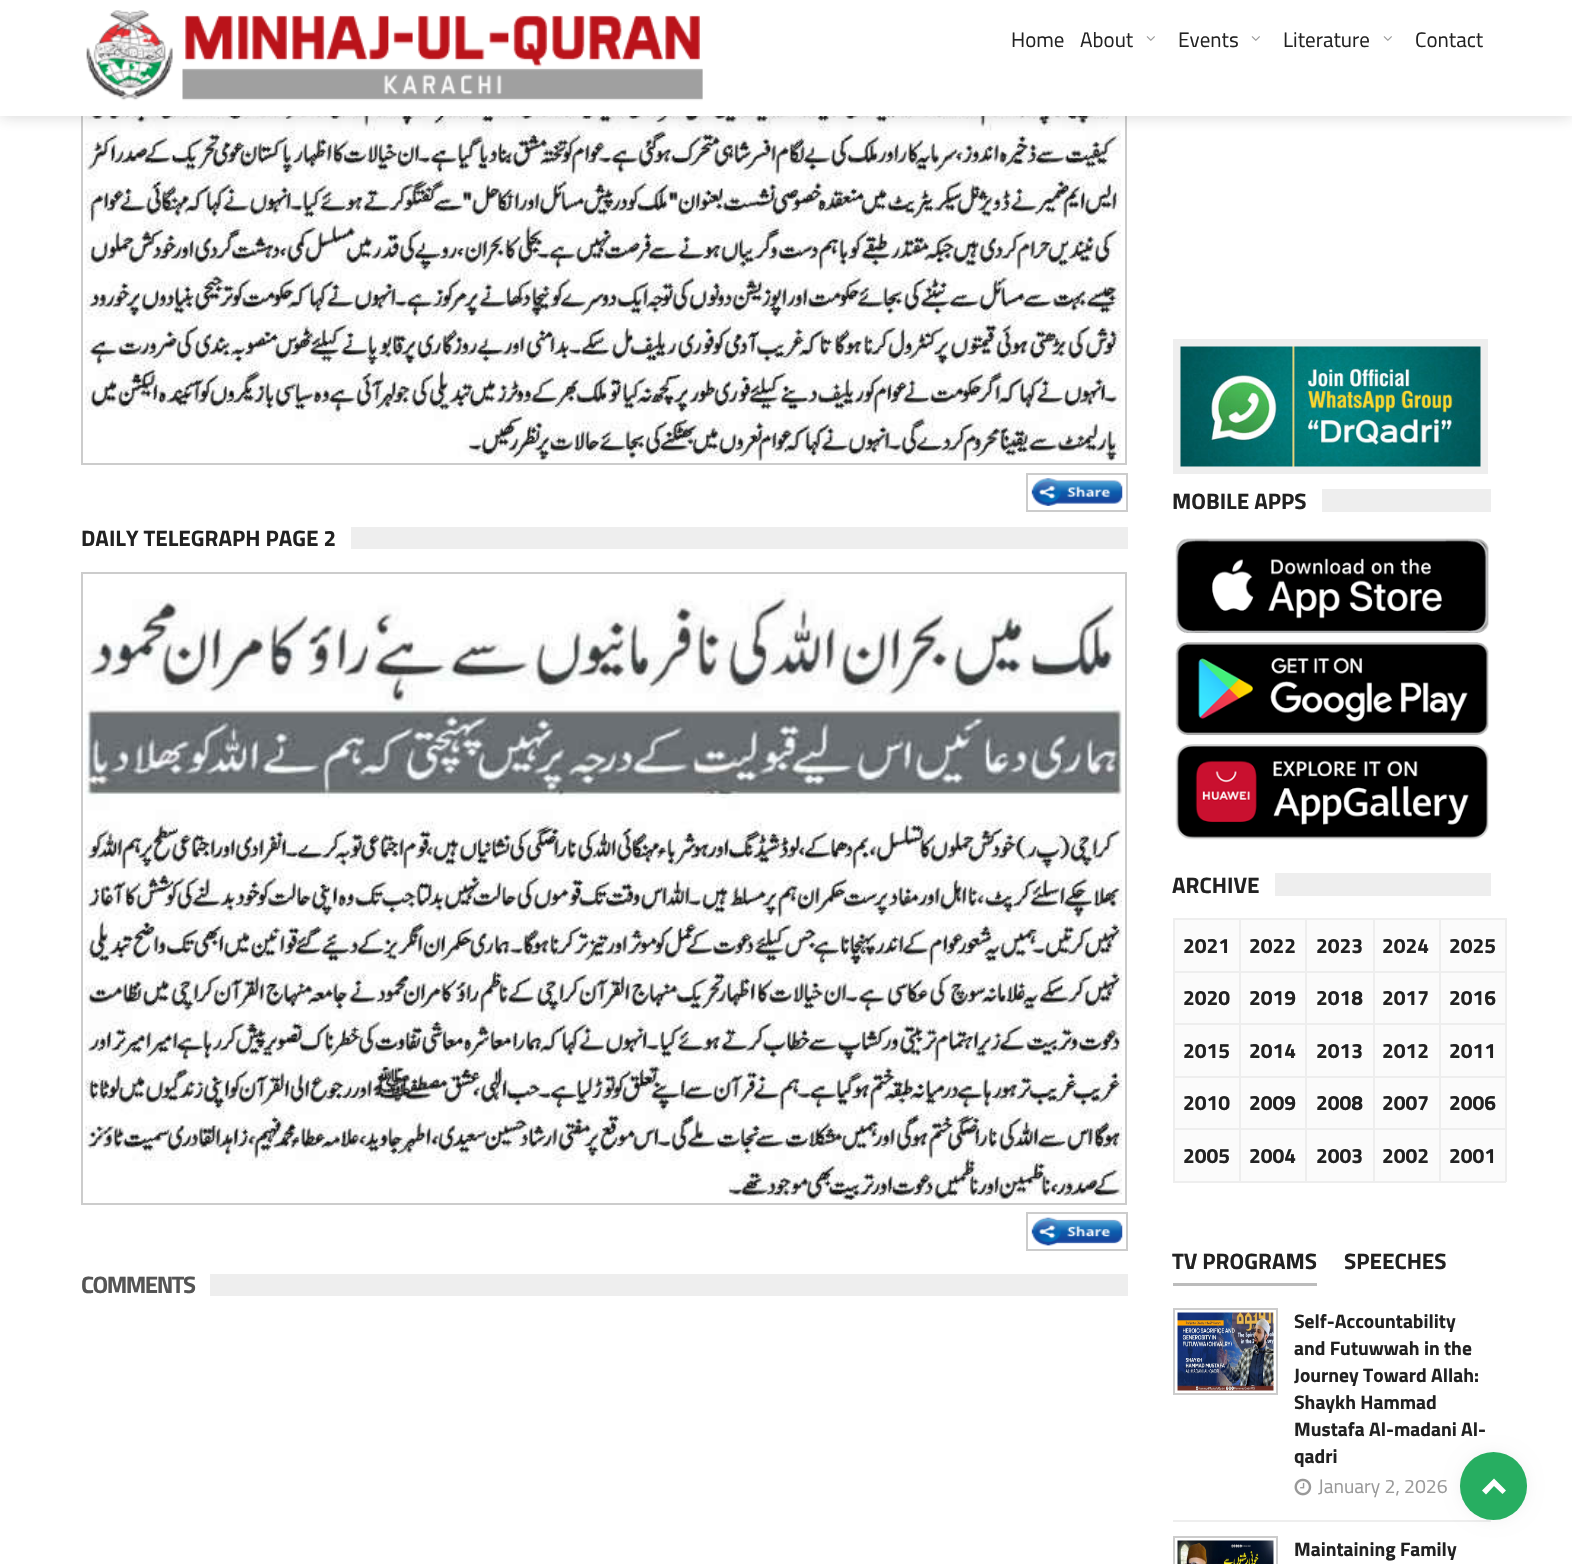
void draw(SkCanvas* canvas) {
  SkPaint paint;
  paint.setAntiAlias(true);
  auto face = [&](const char* family, int weight, float size, bool italic = false) {
    SkFontStyle style(weight, SkFontStyle::kNormal_Width,
      italic ? SkFontStyle::kItalic_Slant : SkFontStyle::kUpright_Slant);
    SkFont result(fontMgr->matchFamilyStyle(family, style), size);
    result.setSubpixel(true);
    return result;
  };
  auto writeSpaced = [&](const char* s, float x, float y, const SkFont& font, const SkPaint& ink, float letter, float word) {
    std::vector<SkGlyphID> glyphs(font.countText(s, strlen(s), SkTextEncoding::kUTF8));
    std::vector<float> xs(glyphs.size());
    font.textToGlyphs(s, strlen(s), SkTextEncoding::kUTF8, glyphs);
    font.getXPos(glyphs, xs, x);
    float extra = 0;
    for (size_t i = 0; i < glyphs.size(); i++) {
      xs[i] += extra;
      extra += letter + word * (glyphs[i] == font.unicharToGlyph(' '));
    }
    canvas->drawTextBlob(SkTextBlob::MakeFromPosHGlyphs(glyphs, xs, y, font), 0, 0, ink);
  };
  auto paste = [&](const char* path, float x, float y, float w, float h) {
    auto image = SkImages::DeferredFromEncodedData(SkData::MakeFromFileName(path));
    canvas->drawImageRect(image, SkRect::MakeXYWH(x, y, w, h), SkSamplingOptions());
  };
  auto shape = [&](const char* data, bool evenOdd = false) {
    SkPath result = *SkParsePath::FromSVGString(data);
    if (evenOdd) result.setFillType(SkPathFillType::kEvenOdd);
    return result;
  };
  canvas->clear(0xffffffff);
  paint.setStroke(true);
  paint.setStrokeWidth(2);
  paint.setColor(0xffcccccc);
  canvas->drawRect(SkRect::MakeXYWH(82, -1, 1044, 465), paint);
  paste("img/3.png", 85, 116, 1036, 345);
  paint.setStroke(false);
  paint.setColor(0x33222222);
  paint.setMaskFilter(SkMaskFilter::MakeBlur(kNormal_SkBlurStyle, 7.5f));
  canvas->drawRect(SkRect::MakeXYWH(0, 0, 1572, 116), paint);
  paint.setMaskFilter(nullptr);
  paint.setColor(0xffffffff);
  canvas->drawRect(SkRect::MakeXYWH(0, 0, 1572, 116), paint);
  paste("img/1.png", 86, 10, 617, 91);
  paste("img/2.png", 1146, 36, 9, 5);
  paste("img/2.png", 1251, 36, 9, 5);
  paste("img/2.png", 1383, 36, 9, 5);
  paint.setStroke(true);
  paint.setColor(0xffcccccc);
  canvas->drawRect(SkRect::MakeXYWH(1027, 474, 100, 37), paint);
  paste("img/4.png", 1031, 478, 92, 28);
  paint.setStroke(false);
  paint.setColor(0xffeeeeee);
  canvas->drawRect(SkRect::MakeXYWH(351, 527, 777, 22), paint);
  paint.setStroke(true);
  paint.setColor(0xffcccccc);
  canvas->drawRect(SkRect::MakeXYWH(82, 573, 1044, 631), paint);
  paste("img/5.png", 85, 588, 1037, 612);
  canvas->drawRect(SkRect::MakeXYWH(1027, 1213, 100, 37), paint);
  paste("img/6.png", 1031, 1217, 92, 29);
  paint.setStroke(false);
  paint.setColor(0xffeeeeee);
  canvas->drawRect(SkRect::MakeXYWH(210, 1274, 918, 22), paint);
  paint.setStroke(true);
  paint.setStrokeWidth(8);
  canvas->drawRect(SkRect::MakeXYWH(1177, 343, 307, 127), paint);
  paste("img/7.png", 1180, 346, 301, 121);
  paint.setStroke(false);
  canvas->drawRect(SkRect::MakeXYWH(1322, 489, 169, 23), paint);
  paste("img/8.png", 1175, 538, 314, 96);
  paste("img/9.png", 1175, 642, 314, 94);
  paste("img/10.png", 1175, 744, 314, 96);
  {
    const struct { float x, y, w, h; SkColor color; } items[] = {
      {1275, 873, 216, 23, 0xffeeeeee},
      {1175, 920, 330, 261, 0xfffbfbfb},
      {1439, 918, 67, 2, 0xffeeeeee},
      {1439, 971, 67, 2, 0xffeeeeee},
      {1439, 1023, 67, 2, 0xffeeeeee},
      {1439, 1076, 67, 2, 0xffeeeeee},
      {1439, 1128, 67, 2, 0xffeeeeee},
      {1505, 1128, 2, 54, 0xffeeeeee},
      {1439, 1181, 67, 2, 0xffeeeeee},
      {1439, 1128, 2, 54, 0xffeeeeee},
      {1373, 1128, 67, 2, 0xffeeeeee},
      {1439, 1076, 2, 54, 0xffeeeeee},
      {1373, 1076, 67, 2, 0xffeeeeee},
      {1439, 1023, 2, 54, 0xffeeeeee},
      {1373, 1023, 67, 2, 0xffeeeeee},
      {1439, 971, 2, 54, 0xffeeeeee},
      {1373, 971, 67, 2, 0xffeeeeee},
      {1439, 918, 2, 54, 0xffeeeeee},
      {1373, 918, 67, 2, 0xffeeeeee},
      {1373, 1181, 67, 2, 0xffeeeeee},
      {1373, 1128, 2, 54, 0xffeeeeee},
      {1305, 1128, 69, 2, 0xffeeeeee},
      {1373, 1076, 2, 54, 0xffeeeeee},
      {1305, 1076, 69, 2, 0xffeeeeee},
      {1373, 1023, 2, 54, 0xffeeeeee},
      {1305, 1023, 69, 2, 0xffeeeeee},
      {1373, 971, 2, 54, 0xffeeeeee},
      {1305, 971, 69, 2, 0xffeeeeee},
      {1373, 918, 2, 54, 0xffeeeeee},
      {1305, 918, 69, 2, 0xffeeeeee},
      {1305, 1181, 69, 2, 0xffeeeeee},
      {1305, 1128, 2, 54, 0xffeeeeee},
      {1239, 1128, 68, 2, 0xffeeeeee},
      {1305, 1076, 2, 54, 0xffeeeeee},
      {1239, 1076, 68, 2, 0xffeeeeee},
      {1305, 1023, 2, 54, 0xffeeeeee},
      {1239, 1023, 68, 2, 0xffeeeeee},
      {1305, 971, 2, 54, 0xffeeeeee},
      {1239, 971, 68, 2, 0xffeeeeee},
      {1305, 918, 2, 54, 0xffeeeeee},
      {1239, 918, 68, 2, 0xffeeeeee},
      {1239, 1181, 68, 2, 0xffeeeeee},
      {1239, 1128, 2, 54, 0xffeeeeee},
      {1173, 1128, 68, 2, 0xffeeeeee},
      {1239, 1076, 2, 54, 0xffeeeeee},
      {1173, 1076, 68, 2, 0xffeeeeee},
      {1239, 1023, 2, 54, 0xffeeeeee},
      {1173, 1023, 68, 2, 0xffeeeeee},
      {1239, 971, 2, 54, 0xffeeeeee},
      {1173, 971, 68, 2, 0xffeeeeee},
      {1239, 918, 2, 54, 0xffeeeeee},
      {1173, 918, 68, 2, 0xffeeeeee},
      {1173, 1181, 68, 2, 0xffeeeeee},
      {1173, 1128, 2, 54, 0xffeeeeee},
      {1173, 1076, 2, 54, 0xffeeeeee},
      {1173, 1023, 2, 54, 0xffeeeeee},
      {1173, 971, 2, 54, 0xffeeeeee},
      {1173, 918, 2, 54, 0xffeeeeee},
      {1505, 1076, 2, 54, 0xffeeeeee},
      {1505, 1023, 2, 54, 0xffeeeeee},
      {1505, 971, 2, 54, 0xffeeeeee},
      {1505, 918, 2, 54, 0xffeeeeee},
      {1173, 1283, 144, 3, 0xffbcbcbc},
      {1173, 1520, 318, 2, 0xffeeeeee},
    };
    for (auto [x, y, w, h, color] : items) {
      paint.setColor(color);
      canvas->drawRect(SkRect::MakeXYWH(x, y, w, h), paint);
    }
  }
  paint.setStroke(true);
  paint.setStrokeWidth(2);
  paint.setColor(0xffcccccc);
  canvas->drawRect(SkRect::MakeXYWH(1174, 1309, 103, 85), paint);
  paste("img/11.png", 1177, 1312, 97, 79);
  paste("img/12.png", 1294, 1478, 18, 18);
  canvas->drawRect(SkRect::MakeXYWH(1174, 1537, 103, 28), paint);
  paste("img/13.png", 1177, 1540, 97, 24);
  paint.setStroke(false);
  paint.setColor(0x0d000000);
  paint.setMaskFilter(SkMaskFilter::MakeBlur(kNormal_SkBlurStyle, 7.5f));
  canvas->drawRoundRect(SkRect::MakeXYWH(1460, 1452, 67, 68), 33.5f, 33.5f, paint);
  paint.setMaskFilter(nullptr);
  paint.setColor(0xff27ae61);
  canvas->drawRoundRect(SkRect::MakeXYWH(1460, 1452, 67, 68), 33.5f, 33.5f, paint);
  paint.setColor(0xffffffff);
  canvas->drawPath(shape("M1494 1478.5L1506 1490.5L1502.5 1494L1494 1486L1486 1494.5L1482 1490.5Z"), paint);
  auto f0 = face("Titillium Web", 400, 21);
  paint.setColor(0xff222222);
  {
    const struct { const char* s; float x, y; } items[] = {
      {"Home", 1011, 47},
      {"About", 1080, 47},
      {"Events", 1178, 47},
      {"Literature", 1283, 47},
      {"Contact", 1415, 47},
    };
    for (auto [s, x, y] : items) {
      canvas->drawString(s, x, y, f0, paint);
    }
  }
  auto f1 = face("Titillium Web", 700, 22.5f);
  canvas->drawString("DAILY TELEGRAPH PAGE 2", 81, 546, f1, paint);
  auto f2 = face("Titillium Web", 700, 24);
  paint.setColor(0xff555555);
  writeSpaced("COMMENTS", 81, 1293, f2, paint, -1.5f, 0);
  paint.setColor(0xff222222);
  canvas->drawString("MOBILE APPS", 1172, 509, f1, paint);
  canvas->drawString("ARCHIVE", 1172, 893, f1, paint);
  auto f3 = face("Titillium Web", 700, 21);
  {
    const struct { const char* s; float x, y; } items[] = {
      {"2021", 1183, 953},
      {"2022", 1249, 953},
      {"2023", 1316, 953},
      {"2024", 1382, 953},
      {"2025", 1449, 953},
      {"2020", 1183, 1005},
      {"2019", 1249, 1005},
      {"2018", 1316, 1005},
      {"2017", 1382, 1005},
      {"2016", 1449, 1005},
      {"2015", 1183, 1058},
      {"2014", 1249, 1058},
      {"2013", 1316, 1058},
      {"2012", 1382, 1058},
      {"2011", 1449, 1058},
      {"2010", 1183, 1110},
      {"2009", 1249, 1110},
      {"2008", 1316, 1110},
      {"2007", 1382, 1110},
      {"2006", 1449, 1110},
      {"2005", 1183, 1163},
      {"2004", 1249, 1163},
      {"2003", 1316, 1163},
      {"2002", 1382, 1163},
      {"2001", 1449, 1163},
    };
    for (auto [s, x, y] : items) {
      canvas->drawString(s, x, y, f3, paint);
    }
  }
  canvas->drawString("TV PROGRAMS", 1172, 1269, f1, paint);
  canvas->drawString("SPEECHES", 1344, 1269, f1, paint);
  auto f4 = face("Titillium Web", 700, 19.5f);
  {
    const struct { const char* s; float x, y; } items[] = {
      {"Self-Accountability", 1294, 1328},
      {"and Futuwwah in the", 1294, 1355},
      {"Journey Toward Allah:", 1294, 1382},
      {"Shaykh Hammad", 1294, 1409},
      {"Mustafa Al-madani Al-", 1294, 1436},
      {"qadri", 1294, 1463},
    };
    for (auto [s, x, y] : items) {
      canvas->drawString(s, x, y, f4, paint);
    }
  }
  auto f5 = face("Titillium Web", 400, 19.5f);
  paint.setColor(0xff999999);
  canvas->drawString("January 2, 2026", 1318, 1493, f5, paint);
  paint.setColor(0xff222222);
  canvas->drawString("Maintaining Family", 1294, 1556, f4, paint);
}
